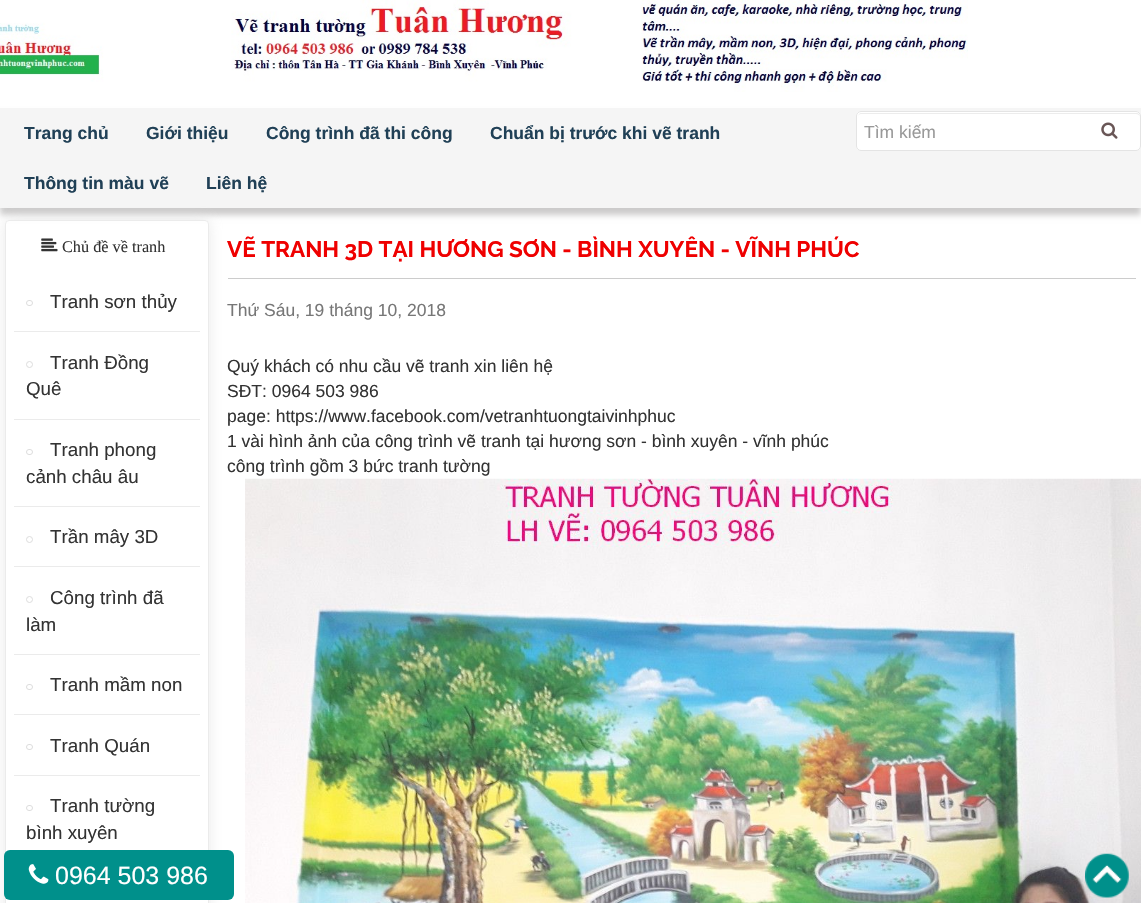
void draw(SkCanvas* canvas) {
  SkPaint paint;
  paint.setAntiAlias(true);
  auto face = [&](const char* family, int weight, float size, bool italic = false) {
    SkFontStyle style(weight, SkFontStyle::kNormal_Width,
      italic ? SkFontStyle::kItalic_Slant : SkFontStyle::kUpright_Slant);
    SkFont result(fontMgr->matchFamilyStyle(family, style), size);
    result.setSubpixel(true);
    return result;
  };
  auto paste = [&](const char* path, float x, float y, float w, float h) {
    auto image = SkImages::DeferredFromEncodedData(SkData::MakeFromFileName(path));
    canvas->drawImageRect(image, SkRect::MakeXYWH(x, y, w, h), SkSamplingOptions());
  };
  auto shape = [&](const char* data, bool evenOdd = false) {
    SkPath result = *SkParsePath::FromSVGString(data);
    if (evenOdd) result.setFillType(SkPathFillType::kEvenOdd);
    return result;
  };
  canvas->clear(0xffffffff);
  paste("img/1.png", 0, 0, 968, 92);
  paint.setColor(0xffcccbcb);
  paint.setMaskFilter(SkMaskFilter::MakeBlur(kNormal_SkBlurStyle, 3));
  canvas->drawRect(SkRect::MakeXYWH(0, 115, 1141, 100), paint);
  paint.setMaskFilter(nullptr);
  paint.setColor(0xfff5f5f5);
  canvas->drawRect(SkRect::MakeXYWH(0, 108, 1141, 100), paint);
  paint.setColor(0xffffffff);
  canvas->drawRoundRect(SkRect::MakeXYWH(856, 111, 285, 40), 5, 5, paint);
  paint.setColor(0xffececec);
  canvas->drawPath(shape("M861 114H1136C1138 114 1140 115 1140 118C1140 115 1139 113 1136 113H862C859 113 858 115 858 118C858 115 859 114 861 114Z"), paint);
  paint.setStroke(true);
  paint.setStrokeWidth(1);
  paint.setColor(0xffe4e4e4);
  canvas->drawRoundRect(SkRect::MakeXYWH(856.5f, 111.5f, 284, 39), 4.5f, 4.5f, paint);
  paste("img/2.png", 1101, 122, 17, 17);
  paint.setStroke(false);
  paint.setColor(0xffcccccc);
  canvas->drawRect(SkRect::MakeXYWH(228, 278, 908, 1), paint);
  canvas->save();
  canvas->clipPath(shape("M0 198H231V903H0ZM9 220H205C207 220 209 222 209 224V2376C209 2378 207 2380 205 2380H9C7 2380 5 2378 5 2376V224C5 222 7 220 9 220Z", true), true);
  paint.setColor(0xbfe1e1e1);
  paint.setMaskFilter(SkMaskFilter::MakeBlur(kNormal_SkBlurStyle, 7));
  canvas->drawRoundRect(SkRect::MakeXYWH(5, 220, 204, 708), 4, 4, paint);
  paint.setMaskFilter(nullptr);
  canvas->restore();
  paint.setStroke(true);
  paint.setColor(0xffebebeb);
  canvas->drawRoundRect(SkRect::MakeXYWH(5.5f, 220.5f, 203, 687), 3.5f, 3.5f, paint);
  paste("img/3.png", 41, 238, 17, 14);
  paint.setStroke(false);
  canvas->drawRect(SkRect::MakeXYWH(14, 331, 186, 1), paint);
  paint.setStroke(true);
  paint.setColor(0xffdddddd);
  canvas->drawRoundRect(SkRect::MakeXYWH(26.5f, 300.5f, 6, 5), 2.5f, 2.5f, paint);
  paint.setStroke(false);
  paint.setColor(0xffebebeb);
  canvas->drawRect(SkRect::MakeXYWH(14, 419, 186, 1), paint);
  paint.setStroke(true);
  paint.setColor(0xffdddddd);
  canvas->drawCircle(29.5f, 364.5f, 3, paint);
  paint.setStroke(false);
  paint.setColor(0xffebebeb);
  canvas->drawRect(SkRect::MakeXYWH(14, 506, 186, 1), paint);
  paint.setStroke(true);
  paint.setColor(0xffdddddd);
  canvas->drawRoundRect(SkRect::MakeXYWH(26.5f, 449.5f, 6, 5), 2.5f, 2.5f, paint);
  paint.setStroke(false);
  paint.setColor(0xffebebeb);
  canvas->drawRect(SkRect::MakeXYWH(14, 566, 186, 1), paint);
  paint.setStroke(true);
  paint.setColor(0xffdddddd);
  canvas->drawCircle(29.5f, 539.5f, 3, paint);
  paint.setStroke(false);
  paint.setColor(0xffebebeb);
  canvas->drawRect(SkRect::MakeXYWH(14, 654, 186, 1), paint);
  paint.setStroke(true);
  paint.setColor(0xffdddddd);
  canvas->drawCircle(29.5f, 599.5f, 3, paint);
  paint.setStroke(false);
  paint.setColor(0xffebebeb);
  canvas->drawRect(SkRect::MakeXYWH(14, 714, 186, 1), paint);
  paint.setStroke(true);
  paint.setColor(0xffdddddd);
  canvas->drawRoundRect(SkRect::MakeXYWH(26.5f, 684.5f, 6, 5), 2.5f, 2.5f, paint);
  paint.setStroke(false);
  paint.setColor(0xffebebeb);
  canvas->drawRect(SkRect::MakeXYWH(14, 775, 186, 1), paint);
  paint.setStroke(true);
  paint.setColor(0xffdddddd);
  canvas->drawRoundRect(SkRect::MakeXYWH(26.5f, 744.5f, 6, 5), 2.5f, 2.5f, paint);
  canvas->drawRoundRect(SkRect::MakeXYWH(26.5f, 805.5f, 6, 5), 2.5f, 2.5f, paint);
  paste("img/4.png", 245, 478, 896, 425);
  paint.setStroke(false);
  paint.setColor(0xff00908b);
  canvas->drawRoundRect(SkRect::MakeXYWH(4, 850, 230, 50), 6, 6, paint);
  paste("img/5.png", 28, 864, 21, 20);
  paste("img/6.png", 1085, 853, 44, 45);
  auto f0 = face("Liberation Sans", 700, 17.5f);
  paint.setColor(0xff204056);
  {
    const struct { const char* s; float x, y; } items[] = {
      {"Trang chủ", 24, 139},
      {"Giới thiệu", 146, 139},
      {"Công trình đã thi công", 266, 139},
      {"Chuẩn bị trước khi vẽ tranh", 490, 139},
      {"Thông tin màu vẽ", 24, 189},
      {"Liên hệ", 206, 189},
    };
    for (auto [s, x, y] : items) {
      canvas->drawString(s, x, y, f0, paint);
    }
  }
  auto f1 = face("Liberation Sans", 400, 17.5f);
  paint.setColor(0xff999999);
  canvas->drawString("Tìm kiếm", 864, 138, f1, paint);
  auto f2 = face("Liberation Serif", 400, 16.25f);
  paint.setColor(0xff333333);
  canvas->drawString("Chủ đề về tranh", 62, 252, f2, paint);
  auto f3 = face("Liberation Sans", 400, 18.75f);
  {
    const struct { const char* s; float x, y; } items[] = {
      {"Tranh sơn thủy", 50, 308},
      {"Tranh Đồng", 50, 369},
      {"Quê", 26, 395},
      {"Tranh phong", 50, 456},
      {"cảnh châu âu", 26, 483},
      {"Trần mây 3D", 50, 543},
      {"Công trình đã", 50, 604},
      {"làm", 26, 631},
      {"Tranh mầm non", 50, 691},
      {"Tranh Quán", 50, 752},
      {"Tranh tường", 50, 812},
      {"bình xuyên", 26, 839},
    };
    for (auto [s, x, y] : items) {
      canvas->drawString(s, x, y, f3, paint);
    }
  }
  auto f4 = face("Raleway", 700, 22.5f);
  paint.setColor(0xffef0000);
  canvas->drawString("VẼ TRANH 3D TẠI HƯƠNG SƠN - BÌNH XUYÊN - VĨNH PHÚC", 227, 257, f4, paint);
  paint.setColor(0xff777777);
  canvas->drawString("Thứ Sáu, 19 tháng 10, 2018", 227, 316, f1, paint);
  paint.setColor(0xff333333);
  {
    const struct { const char* s; float x, y; } items[] = {
      {"Quý khách có nhu cầu vẽ tranh xin liên hệ", 227, 372},
      {"SĐT: 0964 503 986", 227, 397},
      {"page: https://www.facebook.com/vetranhtuongtaivinhphuc", 227, 422},
      {"1 vài hình ảnh của công trình vẽ tranh tại hương sơn - bình xuyên - vĩnh phúc", 227, 447},
      {"công trình gồm 3 bức tranh tường", 227, 472},
    };
    for (auto [s, x, y] : items) {
      canvas->drawString(s, x, y, f1, paint);
    }
  }
  auto f5 = face("Liberation Sans", 400, 25);
  paint.setColor(0xffffffff);
  canvas->drawString("0964 503 986", 55, 884, f5, paint);
}
